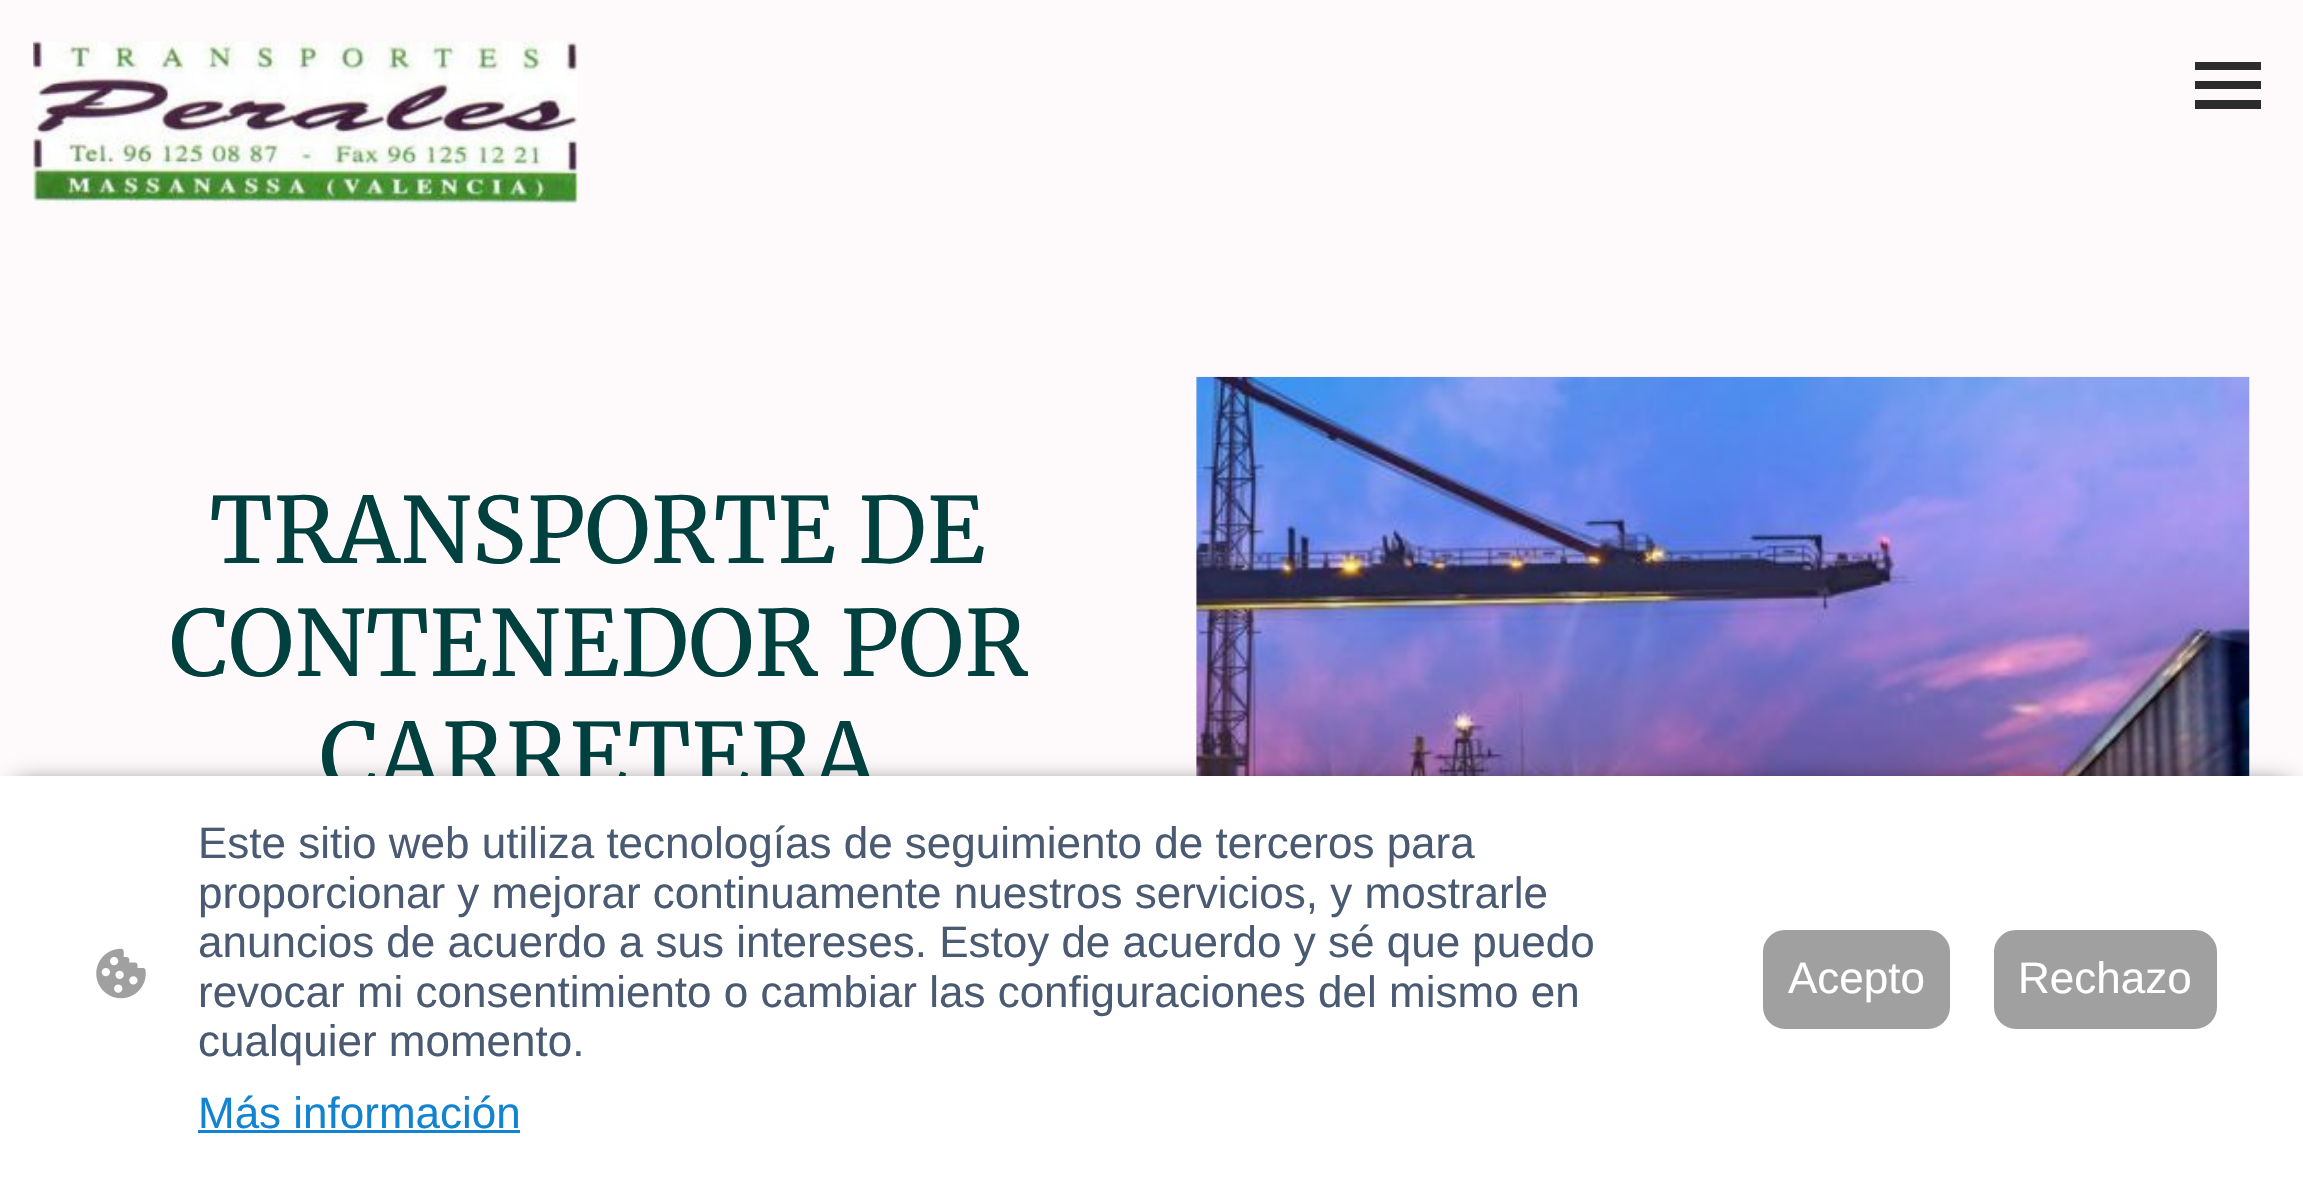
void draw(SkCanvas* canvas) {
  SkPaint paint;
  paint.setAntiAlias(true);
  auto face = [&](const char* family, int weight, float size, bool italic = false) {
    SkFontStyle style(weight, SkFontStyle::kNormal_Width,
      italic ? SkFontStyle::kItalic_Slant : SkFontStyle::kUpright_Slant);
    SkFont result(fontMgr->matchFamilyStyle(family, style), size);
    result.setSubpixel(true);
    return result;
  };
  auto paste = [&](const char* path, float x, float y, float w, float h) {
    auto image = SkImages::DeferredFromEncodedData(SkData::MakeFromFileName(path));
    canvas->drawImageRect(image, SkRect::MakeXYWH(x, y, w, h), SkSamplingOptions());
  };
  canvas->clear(0xfffef9fa);
  paste("img/1.png", 33, 41, 545, 163);
  {
    const struct { float x, y, w, h; SkColor color; } items[] = {
      {2195, 62, 66, 8, 0xff2c2c2c},
      {2195, 81, 66, 8, 0xff2c2c2c},
      {2195, 100, 66, 9, 0xff2c2c2c},
    };
    for (auto [x, y, w, h, color] : items) {
      paint.setColor(color);
      canvas->drawRect(SkRect::MakeXYWH(x, y, w, h), paint);
    }
  }
  paste("img/2.png", 1196, 376, 1054, 400);
  paint.setColor(0xa1000000);
  paint.setMaskFilter(SkMaskFilter::MakeBlur(kNormal_SkBlurStyle, 11));
  canvas->drawRect(SkRect::MakeXYWH(17, 784, 2271, 374), paint);
  paint.setMaskFilter(nullptr);
  auto f0 = face("Merriweather", 400, 90.75f);
  paint.setColor(0xff00403e);
  {
    const struct { const char* s; float x, y; } items[] = {
      {"TRANSPORTE DE", 210, 563},
      {"CONTENEDOR POR", 169, 676},
      {"CARRETERA", 319, 789},
    };
    for (auto [s, x, y] : items) {
      canvas->drawString(s, x, y, f0, paint);
    }
  }
  paint.setColor(0xffffffff);
  canvas->drawRect(SkRect::MakeXYWH(0, 776, 2303, 405), paint);
  paste("img/3.png", 96, 948, 50, 51);
  auto f1 = face("Liberation Sans", 400, 44);
  paint.setColor(0xff4a5a73);
  {
    const struct { const char* s; float x, y; } items[] = {
      {"Este sitio web utiliza tecnologías de seguimiento de terceros para", 198, 858},
      {"proporcionar y mejorar continuamente nuestros servicios, y mostrarle", 198, 908},
      {"anuncios de acuerdo a sus intereses. Estoy de acuerdo y sé que puedo", 198, 957},
      {"revocar mi consentimiento o cambiar las configuraciones del mismo en", 198, 1007},
      {"cualquier momento.", 198, 1056},
    };
    for (auto [s, x, y] : items) {
      canvas->drawString(s, x, y, f1, paint);
    }
  }
  paint.setColor(0xff1183d1);
  canvas->drawString("Más información", 198, 1128, f1, paint);
  canvas->drawRect(SkRect::MakeXYWH(198, 1130, 322, 3), paint);
  paint.setColor(0xffa0a0a0);
  canvas->drawRoundRect(SkRect::MakeXYWH(1764.5f, 931.5f, 184, 96), 20.5f, 20.5f, paint);
  paint.setStroke(true);
  paint.setStrokeWidth(3);
  canvas->drawRoundRect(SkRect::MakeXYWH(1764.5f, 931.5f, 184, 96), 20.5f, 20.5f, paint);
  paint.setStroke(false);
  paint.setColor(0xffffffff);
  canvas->drawString("Acepto", 1788, 993, f1, paint);
  paint.setColor(0xffa0a0a0);
  canvas->drawRoundRect(SkRect::MakeXYWH(1995.5f, 931.5f, 220, 96), 20.5f, 20.5f, paint);
  paint.setStroke(true);
  canvas->drawRoundRect(SkRect::MakeXYWH(1995.5f, 931.5f, 220, 96), 20.5f, 20.5f, paint);
  paint.setStroke(false);
  paint.setColor(0xffffffff);
  canvas->drawString("Rechazo", 2018, 993, f1, paint);
}
